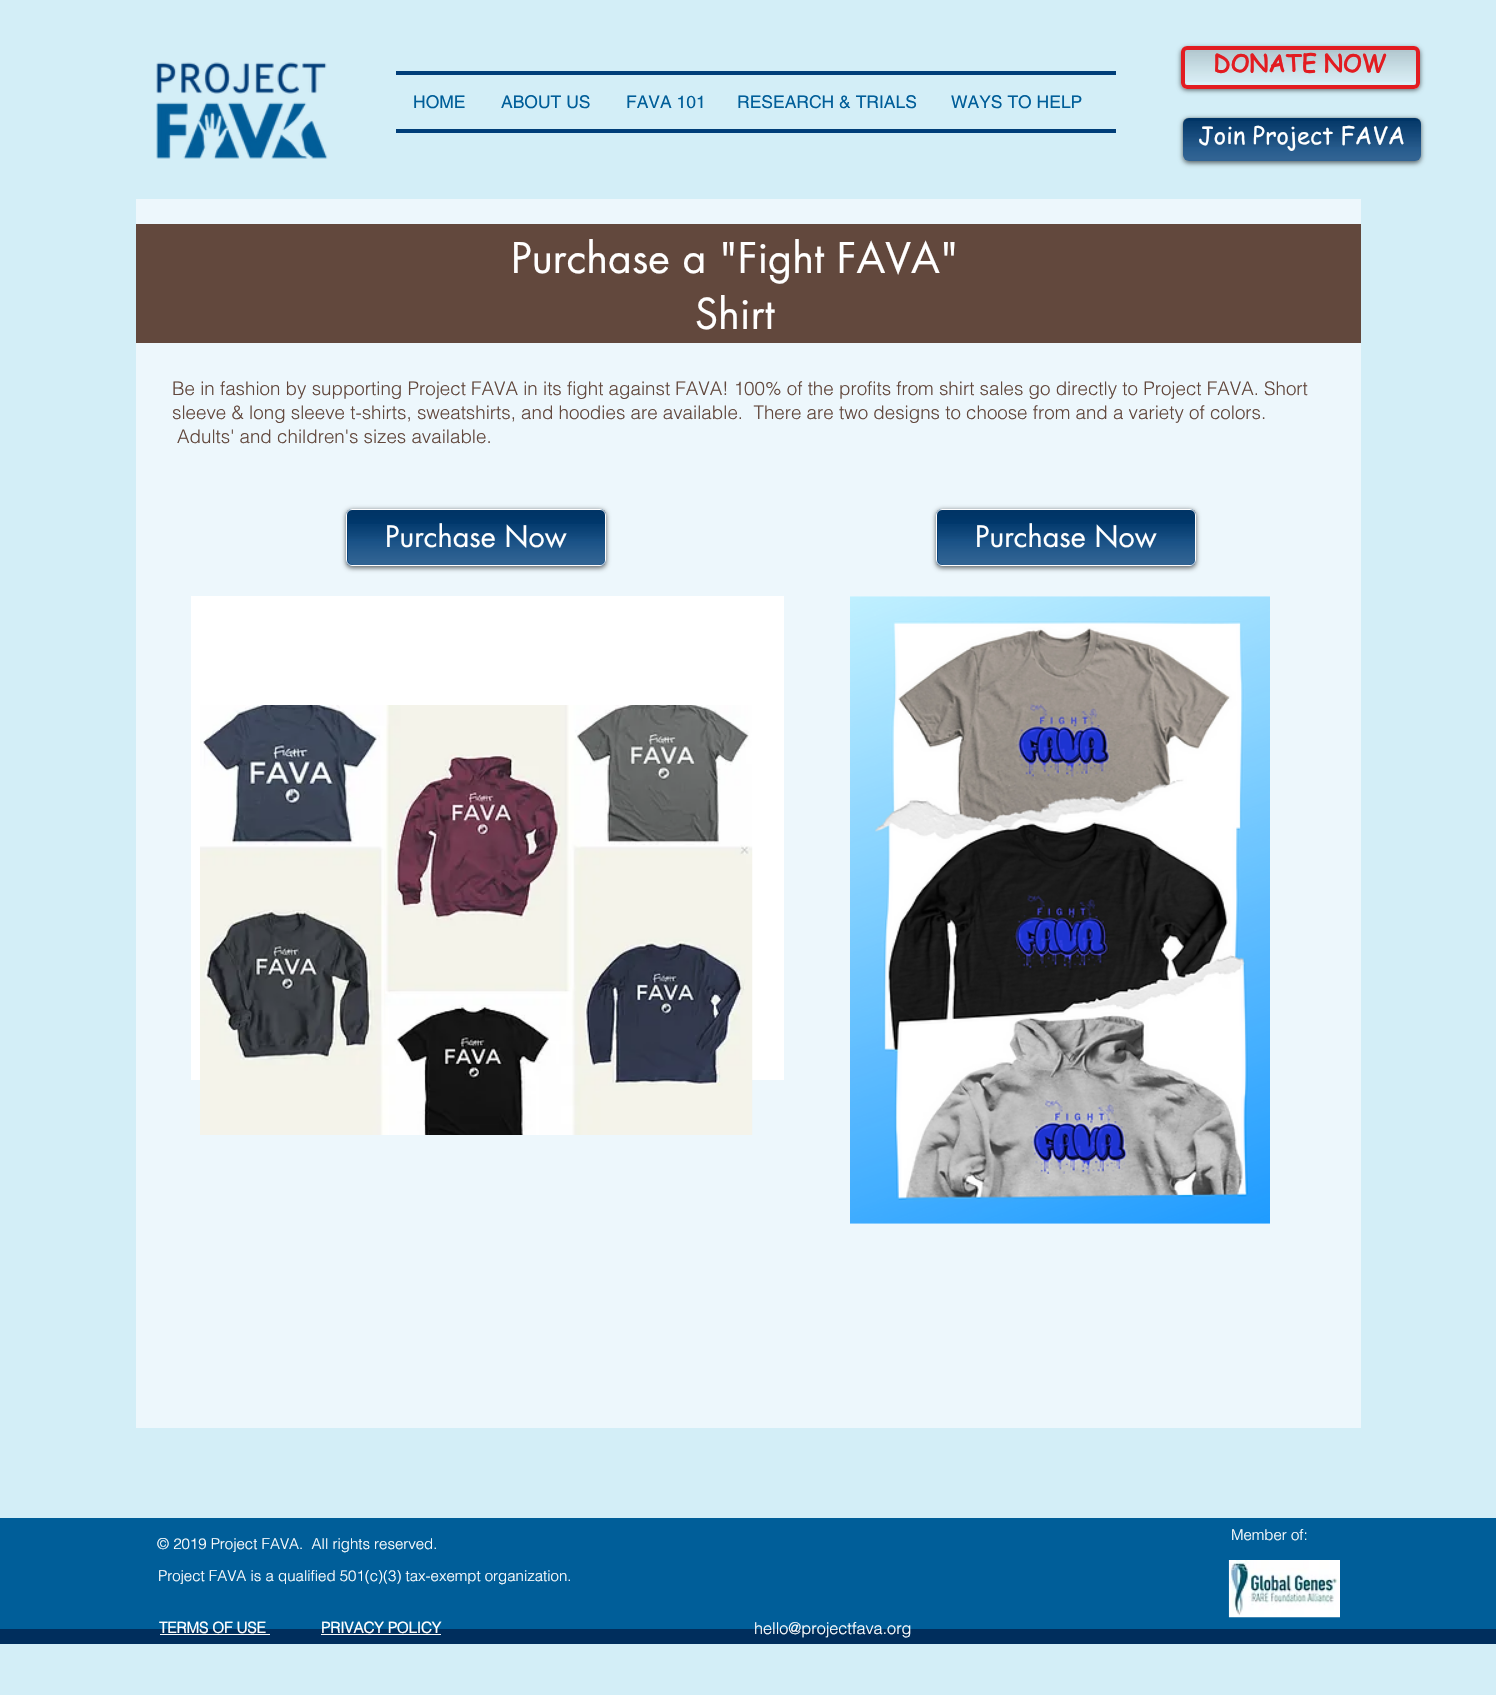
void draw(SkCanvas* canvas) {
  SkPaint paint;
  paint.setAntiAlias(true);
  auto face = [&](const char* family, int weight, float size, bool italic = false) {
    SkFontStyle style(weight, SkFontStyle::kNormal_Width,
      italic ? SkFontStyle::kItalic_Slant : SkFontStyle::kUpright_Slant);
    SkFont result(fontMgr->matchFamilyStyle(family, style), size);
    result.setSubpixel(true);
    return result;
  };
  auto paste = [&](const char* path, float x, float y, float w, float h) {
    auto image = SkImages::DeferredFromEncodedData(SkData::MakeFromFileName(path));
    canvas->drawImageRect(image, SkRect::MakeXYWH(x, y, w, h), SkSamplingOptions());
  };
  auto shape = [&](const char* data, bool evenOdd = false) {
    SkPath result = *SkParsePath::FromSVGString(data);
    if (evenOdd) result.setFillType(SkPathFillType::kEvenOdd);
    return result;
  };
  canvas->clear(0xffd3eef7);
  paste("img/1.png", 156, 62, 172, 97);
  paint.setColor(0xff003e79);
  canvas->drawRect(SkRect::MakeXYWH(396, 71, 720, 4), paint);
  canvas->drawRect(SkRect::MakeXYWH(396, 129, 720, 4), paint);
  canvas->save();
  canvas->clipPath(shape("M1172 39H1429V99H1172ZM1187 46H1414C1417.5 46 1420 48.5 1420 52V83C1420 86.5 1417.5 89 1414 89H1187C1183.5 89 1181 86.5 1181 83V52C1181 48.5 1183.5 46 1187 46Z", true), true);
  paint.setColor(0x99000000);
  paint.setMaskFilter(SkMaskFilter::MakeBlur(kNormal_SkBlurStyle, 2.5f));
  canvas->drawRoundRect(SkRect::MakeXYWH(1181, 48, 239, 42), 6, 6, paint);
  paint.setMaskFilter(nullptr);
  canvas->restore();
  paste("img/2.png", 1181, 50, 239, 32);
  paint.setStroke(true);
  paint.setStrokeWidth(4);
  paint.setColor(0xffe21c21);
  canvas->drawRoundRect(SkRect::MakeXYWH(1183, 48, 235, 39), 4, 4, paint);
  paste("img/3.png", 1185, 52, 231, 33);
  paint.setStroke(false);
  paint.setColor(0x99000000);
  paint.setMaskFilter(SkMaskFilter::MakeBlur(kNormal_SkBlurStyle, 2.5f));
  canvas->drawRoundRect(SkRect::MakeXYWH(1183, 119, 238, 44), 6, 6, paint);
  paint.setMaskFilter(nullptr);
  paint.setColor(0xff003e79);
  canvas->drawRoundRect(SkRect::MakeXYWH(1183, 118, 238, 43), 6, 6, paint);
  paste("img/4.png", 1182, 117, 239, 30);
  paste("img/5.png", 1183, 121, 238, 40);
  paint.setColor(0xffedf7fc);
  canvas->drawRect(SkRect::MakeXYWH(136, 199, 1225, 1229), paint);
  paint.setColor(0xff62483d);
  canvas->drawRect(SkRect::MakeXYWH(136, 224, 1225, 119), paint);
  paint.setColor(0x99000000);
  paint.setMaskFilter(SkMaskFilter::MakeBlur(kNormal_SkBlurStyle, 2.5f));
  canvas->drawRoundRect(SkRect::MakeXYWH(346, 510, 260, 58), 6, 6, paint);
  paint.setMaskFilter(nullptr);
  paint.setColor(0xff003e79);
  canvas->drawRoundRect(SkRect::MakeXYWH(346, 509, 260, 57), 6, 6, paint);
  paste("img/6.png", 346, 510, 260, 29);
  paint.setStroke(true);
  paint.setStrokeWidth(1);
  paint.setColor(0xfffefdfd);
  canvas->drawRoundRect(SkRect::MakeXYWH(346.5f, 509.5f, 259, 56), 5.5f, 5.5f, paint);
  paste("img/7.png", 347, 524, 258, 41);
  paint.setStroke(false);
  paint.setColor(0x99000000);
  paint.setMaskFilter(SkMaskFilter::MakeBlur(kNormal_SkBlurStyle, 2.5f));
  canvas->drawRoundRect(SkRect::MakeXYWH(936, 510, 260, 58), 6, 6, paint);
  paint.setMaskFilter(nullptr);
  paint.setColor(0xff003e79);
  canvas->drawRoundRect(SkRect::MakeXYWH(936, 509, 260, 57), 6, 6, paint);
  paste("img/6.png", 936, 510, 260, 29);
  paint.setStroke(true);
  paint.setColor(0xfffefdfd);
  canvas->drawRoundRect(SkRect::MakeXYWH(936.5f, 509.5f, 259, 56), 5.5f, 5.5f, paint);
  paste("img/7.png", 937, 524, 258, 41);
  paint.setStroke(false);
  paint.setColor(0xffffffff);
  canvas->drawRect(SkRect::MakeXYWH(191, 596, 593, 484), paint);
  paste("img/8.png", 850, 596, 420, 628);
  paste("img/9.png", 200, 705, 553, 430);
  paint.setColor(0xff005e99);
  canvas->drawRect(SkRect::MakeXYWH(0, 1518, 1496, 111), paint);
  paint.setColor(0xff002e5d);
  canvas->drawRect(SkRect::MakeXYWH(0, 1629, 1496, 15), paint);
  paste("img/10.png", 1228, 1560, 112, 58);
  paint.setColor(0xfffefdfd);
  canvas->drawRect(SkRect::MakeXYWH(160, 1634, 110, 1), paint);
  canvas->drawRect(SkRect::MakeXYWH(321, 1634, 120, 1), paint);
  auto f0 = face("helvetica", 400, 17.5f);
  paint.setColor(0xff005e99);
  {
    const struct { const char* s; float x, y; } items[] = {
      {"HOME", 413, 108},
      {"ABOUT US", 501, 108},
      {"FAVA 101", 626, 108},
      {"RESEARCH & TRIALS", 737, 108},
      {"WAYS TO HELP", 951, 108},
    };
    for (auto [s, x, y] : items) {
      canvas->drawString(s, x, y, f0, paint);
    }
  }
  auto f1 = face("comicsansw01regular", 700, 23.75f);
  paint.setColor(0xffe21c21);
  canvas->drawString("DONATE NOW", 1213, 72, f1, paint);
  auto f2 = face("comicsansw01regular", 400, 23.75f);
  paint.setColor(0xffffffff);
  canvas->drawString("Join Project FAVA", 1198, 144, f2, paint);
  auto f3 = face("futura", 400, 41.25f);
  canvas->drawString("Purchase a \"Fight FAVA\"", 511, 273, f3, paint);
  canvas->drawString("Shirt", 695, 329, f3, paint);
  auto f4 = face("helvetica", 300, 18.75f);
  paint.setColor(0xff62483d);
  {
    const struct { const char* s; float x, y; } items[] = {
      {"Be in fashion by supporting Project FAVA in its fight against FAVA! 100% of the profits from shirt sales go directly to Project FAVA. Short", 172, 395},
      {"sleeve & long sleeve t-shirts, sweatshirts, and hoodies are available.  There are two designs to choose from and a variety of colors.", 172, 419},
      {"Adults' and children's sizes available.", 177, 443},
    };
    for (auto [s, x, y] : items) {
      canvas->drawString(s, x, y, f4, paint);
    }
  }
  auto f5 = face("futura", 400, 28.75f);
  paint.setColor(0xffffffff);
  canvas->drawString("Purchase Now", 385, 547, f5, paint);
  canvas->drawString("Purchase Now", 975, 547, f5, paint);
  auto f6 = face("helvetica", 300, 15);
  {
    const struct { const char* s; float x, y; } items[] = {
      {"Member of:", 1231, 1540},
      {"© 2019 Project FAVA.  All rights reserved.", 157, 1549},
      {"Project FAVA is a qualified 501(c)(3) tax-exempt organization.", 158, 1581},
    };
    for (auto [s, x, y] : items) {
      canvas->drawString(s, x, y, f6, paint);
    }
  }
  auto f7 = face("helvetica", 700, 15);
  canvas->drawString("TERMS OF USE", 159, 1633, f7, paint);
  canvas->drawString("PRIVACY POLICY", 321, 1633, f7, paint);
  auto f8 = face("helvetica", 300, 16.25f);
  canvas->drawString("hello@projectfava.org", 754, 1634, f8, paint);
}
